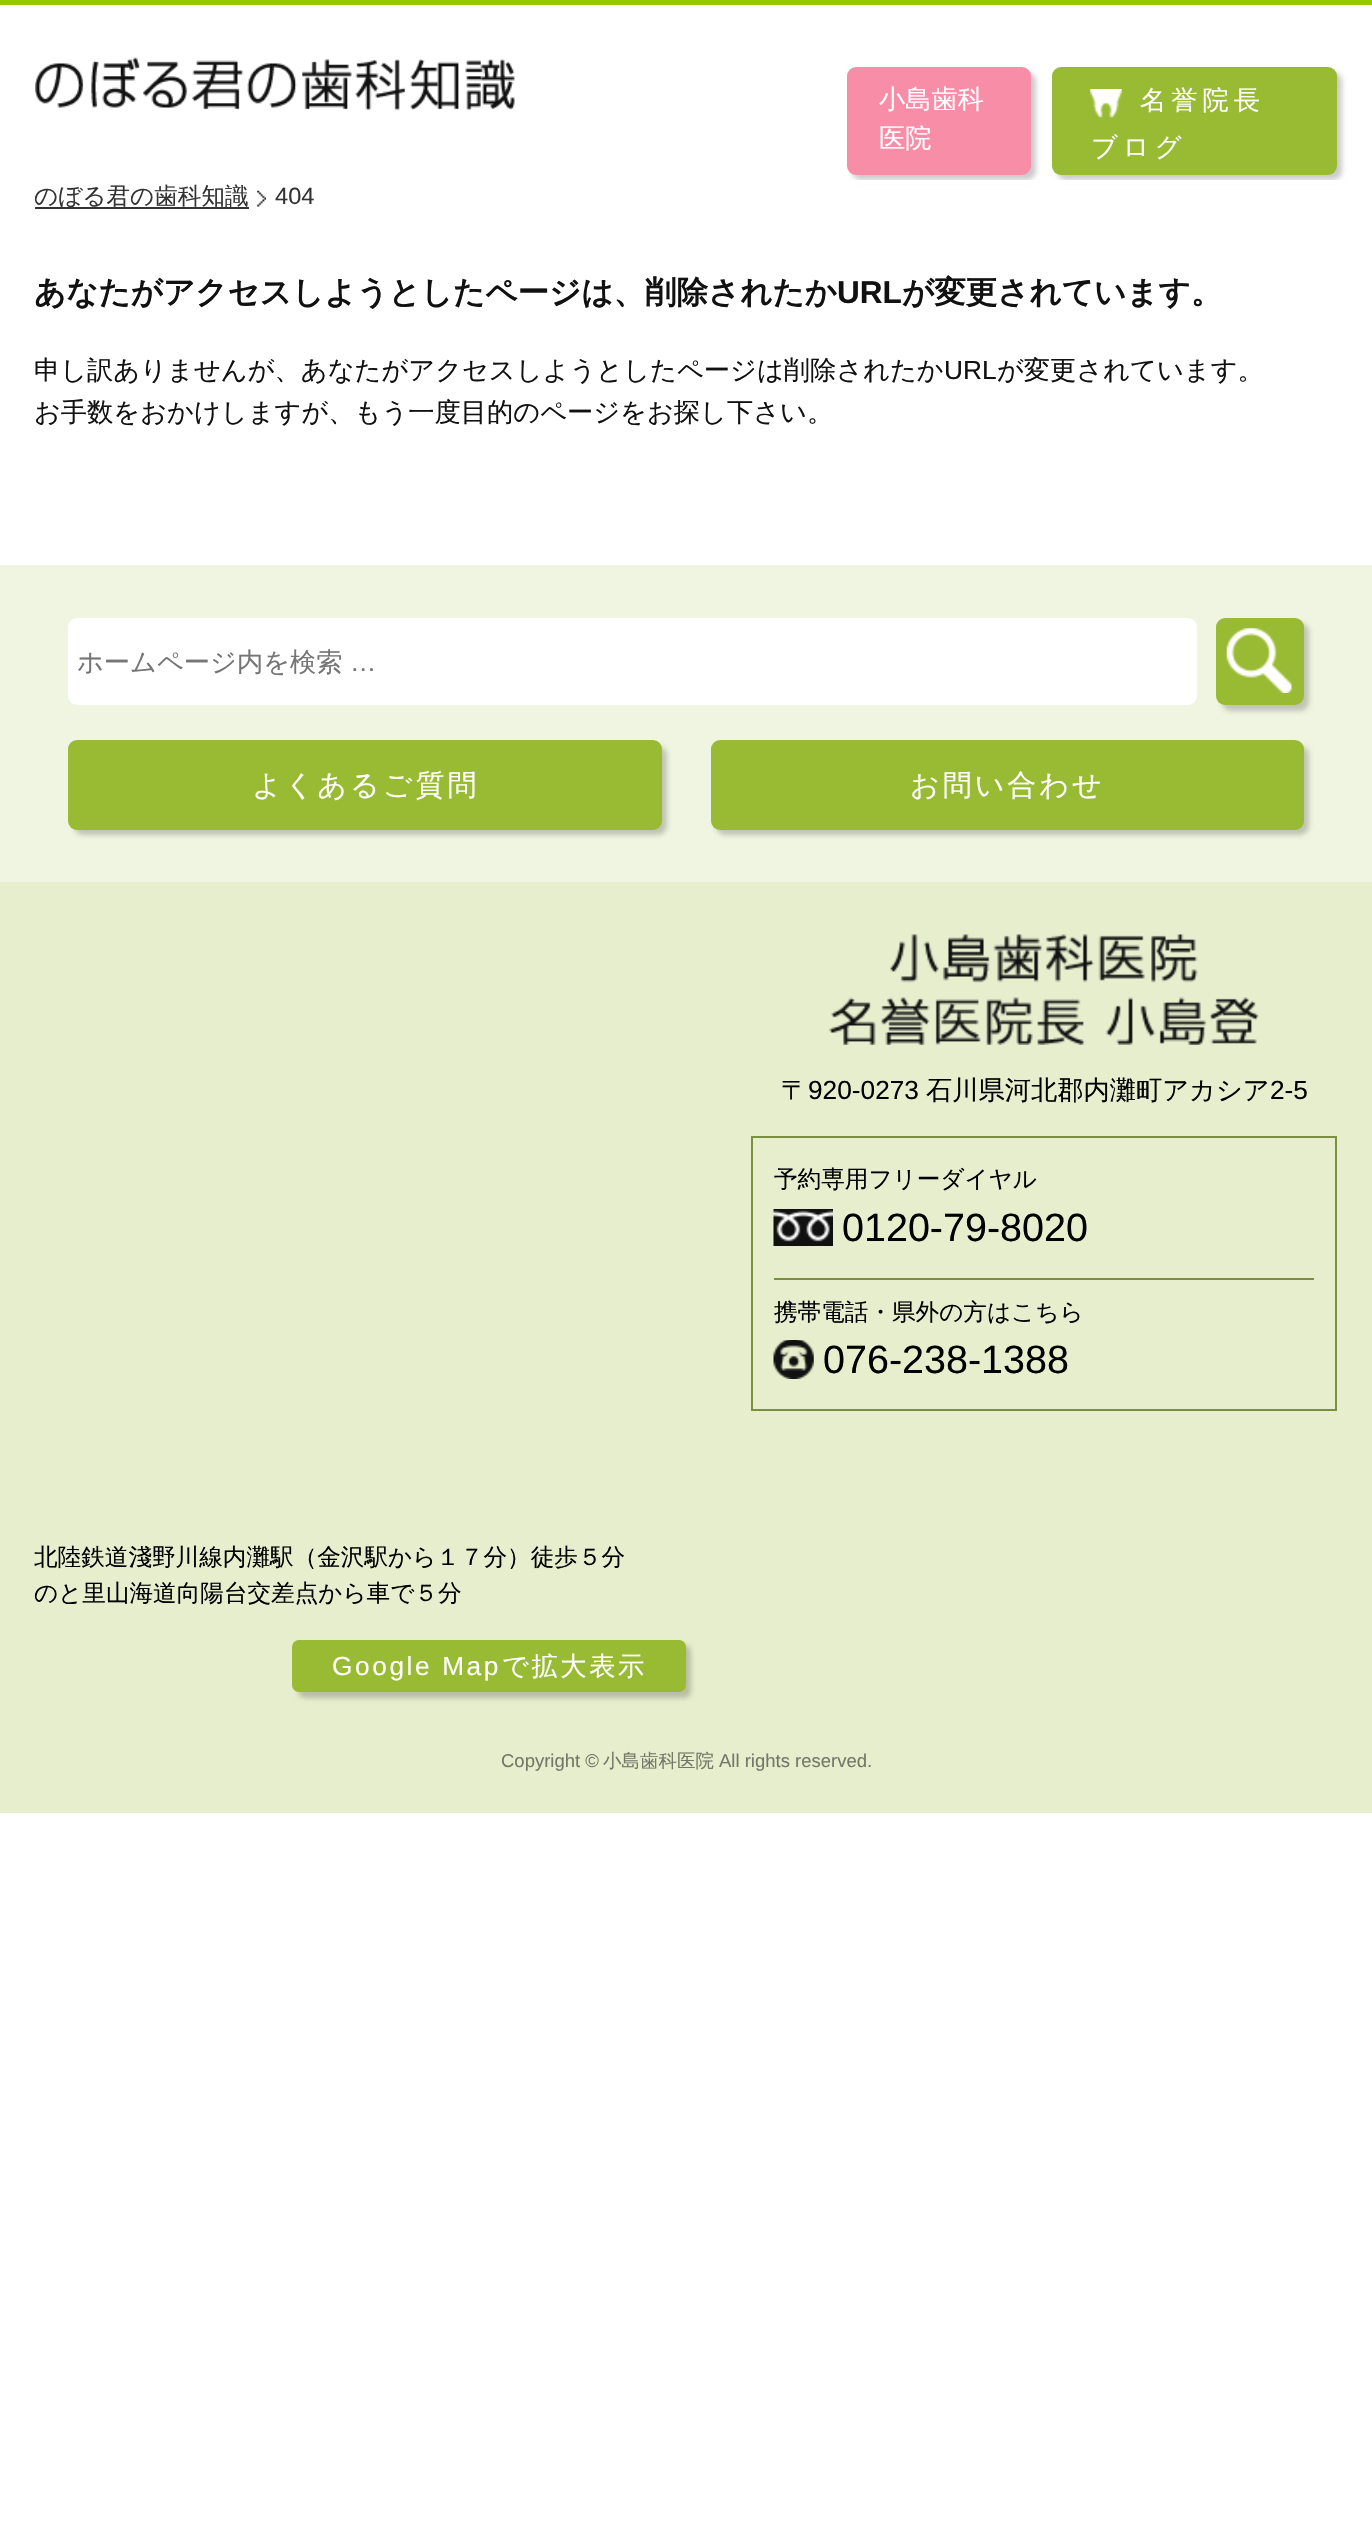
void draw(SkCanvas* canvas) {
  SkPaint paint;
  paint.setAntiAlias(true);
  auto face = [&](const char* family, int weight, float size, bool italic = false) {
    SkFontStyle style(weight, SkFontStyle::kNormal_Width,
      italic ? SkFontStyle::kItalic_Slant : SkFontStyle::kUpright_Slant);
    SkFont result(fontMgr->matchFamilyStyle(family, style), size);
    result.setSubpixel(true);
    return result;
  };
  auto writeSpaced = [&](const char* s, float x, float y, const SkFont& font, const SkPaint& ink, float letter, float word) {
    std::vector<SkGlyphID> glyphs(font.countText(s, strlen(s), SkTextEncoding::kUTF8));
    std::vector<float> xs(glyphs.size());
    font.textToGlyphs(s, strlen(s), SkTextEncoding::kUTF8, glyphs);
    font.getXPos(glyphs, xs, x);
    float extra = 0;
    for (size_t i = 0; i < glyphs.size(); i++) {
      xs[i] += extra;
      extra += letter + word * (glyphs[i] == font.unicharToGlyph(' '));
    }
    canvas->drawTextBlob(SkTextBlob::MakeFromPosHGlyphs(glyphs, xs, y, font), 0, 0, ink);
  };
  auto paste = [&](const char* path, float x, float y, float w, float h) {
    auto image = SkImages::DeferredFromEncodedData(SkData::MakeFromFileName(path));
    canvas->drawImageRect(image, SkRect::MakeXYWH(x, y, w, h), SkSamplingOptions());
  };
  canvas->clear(0xffffffff);
  paint.setColor(0xff96c800);
  canvas->drawRect(SkRect::MakeXYWH(0, 0, 1372, 5), paint);
  paste("img/1.png", 35, 57, 480, 54);
  paint.setColor(0x33000000);
  paint.setMaskFilter(SkMaskFilter::MakeBlur(kNormal_SkBlurStyle, 2.5f));
  canvas->drawRoundRect(SkRect::MakeXYWH(852, 72, 184, 108), 9, 9, paint);
  paint.setMaskFilter(nullptr);
  paint.setColor(0xfff78da7);
  canvas->drawRoundRect(SkRect::MakeXYWH(847, 67, 184, 108), 9, 9, paint);
  paint.setColor(0x33000000);
  paint.setMaskFilter(SkMaskFilter::MakeBlur(kNormal_SkBlurStyle, 2.5f));
  canvas->drawRoundRect(SkRect::MakeXYWH(1057, 72, 285, 108), 9, 9, paint);
  paint.setMaskFilter(nullptr);
  paint.setColor(0xff99bb33);
  canvas->drawRoundRect(SkRect::MakeXYWH(1052, 67, 285, 108), 9, 9, paint);
  paste("img/2.png", 1090, 89, 32, 29);
  paint.setColor(0xffffffff);
  canvas->drawRect(SkRect::MakeXYWH(852, 180, 490, 4), paint);
  paint.setColor(0xff333333);
  canvas->drawRect(SkRect::MakeXYWH(35, 207, 214, 2), paint);
  paste("img/3.png", 257, 190, 9, 17);
  paint.setColor(0xfff0f5e1);
  canvas->drawRect(SkRect::MakeXYWH(0, 565, 1372, 317), paint);
  paint.setColor(0xffffffff);
  canvas->drawRoundRect(SkRect::MakeXYWH(68, 618, 1129, 87), 9, 9, paint);
  paint.setColor(0x33000000);
  paint.setMaskFilter(SkMaskFilter::MakeBlur(kNormal_SkBlurStyle, 2.5f));
  canvas->drawRoundRect(SkRect::MakeXYWH(1222, 623, 87, 88), 9, 9, paint);
  paint.setMaskFilter(nullptr);
  paint.setColor(0xff99bb33);
  canvas->drawRoundRect(SkRect::MakeXYWH(1216, 618, 88, 87), 9, 9, paint);
  paste("img/4.png", 1226, 628, 66, 65);
  paint.setColor(0x33000000);
  paint.setMaskFilter(SkMaskFilter::MakeBlur(kNormal_SkBlurStyle, 2.5f));
  canvas->drawRoundRect(SkRect::MakeXYWH(74, 746, 593, 89), 9, 9, paint);
  paint.setMaskFilter(nullptr);
  paint.setColor(0xff99bb33);
  canvas->drawRoundRect(SkRect::MakeXYWH(68, 740, 594, 90), 9, 9, paint);
  paint.setColor(0x33000000);
  paint.setMaskFilter(SkMaskFilter::MakeBlur(kNormal_SkBlurStyle, 2.5f));
  canvas->drawRoundRect(SkRect::MakeXYWH(716, 746, 593, 89), 9, 9, paint);
  paint.setMaskFilter(nullptr);
  paint.setColor(0xff99bb33);
  canvas->drawRoundRect(SkRect::MakeXYWH(711, 740, 593, 90), 9, 9, paint);
  paint.setColor(0xffe7eece);
  canvas->drawRect(SkRect::MakeXYWH(0, 882, 1372, 931), paint);
  paste("img/5.png", 829, 934, 430, 111);
  paint.setStroke(true);
  paint.setStrokeWidth(2);
  paint.setColor(0xff7a903e);
  canvas->drawRect(SkRect::MakeXYWH(752, 1137, 584, 273), paint);
  paint.setStroke(false);
  canvas->drawRect(SkRect::MakeXYWH(774, 1278, 540, 2), paint);
  paste("img/6.png", 773, 1209, 60, 37);
  paste("img/7.png", 773, 1340, 41, 39);
  paint.setColor(0x33000000);
  paint.setMaskFilter(SkMaskFilter::MakeBlur(kNormal_SkBlurStyle, 2.5f));
  canvas->drawRoundRect(SkRect::MakeXYWH(298, 1645, 393, 53), 7, 7, paint);
  paint.setMaskFilter(nullptr);
  paint.setColor(0xff99bb33);
  canvas->drawRoundRect(SkRect::MakeXYWH(292, 1640, 394, 52), 7, 7, paint);
  auto f0 = face("WenQuanYi Zen Hei", 500, 26.25f);
  paint.setColor(0xffffffff);
  canvas->drawString("小島歯科", 879, 108, f0, paint);
  canvas->drawString("医院", 879, 147, f0, paint);
  writeSpaced("名誉院長", 1140, 109, f0, paint, 5, 0);
  writeSpaced("ブログ", 1091, 156, f0, paint, 5, 0);
  auto f1 = face("WenQuanYi Zen Hei", 500, 23.6f);
  paint.setColor(0xff333333);
  canvas->drawString("のぼる君の歯科知識", 34, 204, f1, paint);
  auto f2 = face("Liberation Sans", 400, 23.6f);
  canvas->drawString("404", 275, 204, f2, paint);
  auto f3 = face("WenQuanYi Zen Hei", 700, 31.5f);
  paint.setColor(0xff111111);
  canvas->drawString("あなたがアクセスしようとしたページは、削除されたか", 34, 303, f3, paint);
  auto f4 = face("Liberation Sans", 700, 31.5f);
  canvas->drawString("URL", 837, 303, f4, paint);
  canvas->drawString("が変更されています。", 902, 303, f3, paint);
  canvas->drawString("申し訳ありませんが、あなたがアクセスしようとしたページは削除されたか", 34, 379, f0, paint);
  auto f5 = face("Liberation Sans", 400, 26.25f);
  canvas->drawString("URL", 944, 379, f5, paint);
  canvas->drawString("が変更されています。", 997, 379, f0, paint);
  canvas->drawString("お手数をおかけしますが、もう一度目的のページをお探し下さい。", 34, 421, f0, paint);
  paint.setColor(0xff757575);
  canvas->drawString("ホームページ内を検索", 77, 671, f0, paint);
  canvas->drawString("…", 350, 671, f5, paint);
  auto f6 = face("WenQuanYi Zen Hei", 500, 29);
  paint.setColor(0xffffffff);
  writeSpaced("よくあるご質問", 252, 795, f6, paint, 3, 0);
  writeSpaced("お問い合わせ", 910, 795, f6, paint, 3, 0);
  paint.setColor(0xff000000);
  canvas->drawString("〒", 781, 1099, f0, paint);
  canvas->drawString("920-0273", 808, 1099, f5, paint);
  canvas->drawString("石川県河北郡内灘町アカシア", 926, 1099, f0, paint);
  canvas->drawString("2-5", 1270, 1099, f5, paint);
  canvas->drawString("予約専用フリーダイヤル", 774, 1187, f1, paint);
  auto f7 = face("Liberation Sans", 400, 39.5f);
  canvas->drawString("0120-79-8020", 842, 1241, f7, paint);
  canvas->drawString("携帯電話・県外の方はこちら", 774, 1320, f1, paint);
  canvas->drawString("076-238-1388", 823, 1373, f7, paint);
  canvas->drawString("北陸鉄道淺野川線内灘駅（金沢駅から１７分）徒歩５分", 34, 1565, f1, paint);
  canvas->drawString("のと里山海道向陽台交差点から車で５分", 34, 1601, f1, paint);
  paint.setColor(0xffffffff);
  writeSpaced("Google Map", 332, 1675, f5, paint, 2.6f, 0);
  writeSpaced("で拡大表示", 502, 1675, f0, paint, 2.6f, 0);
  auto f8 = face("Liberation Sans", 400, 18.5f);
  paint.setColor(0xff747767);
  canvas->drawString("Copyright ©", 501, 1767, f8, paint);
  auto f9 = face("WenQuanYi Zen Hei", 500, 18.5f);
  canvas->drawString("小島歯科医院", 603, 1767, f9, paint);
  canvas->drawString("All rights reserved.", 719, 1767, f8, paint);
}
